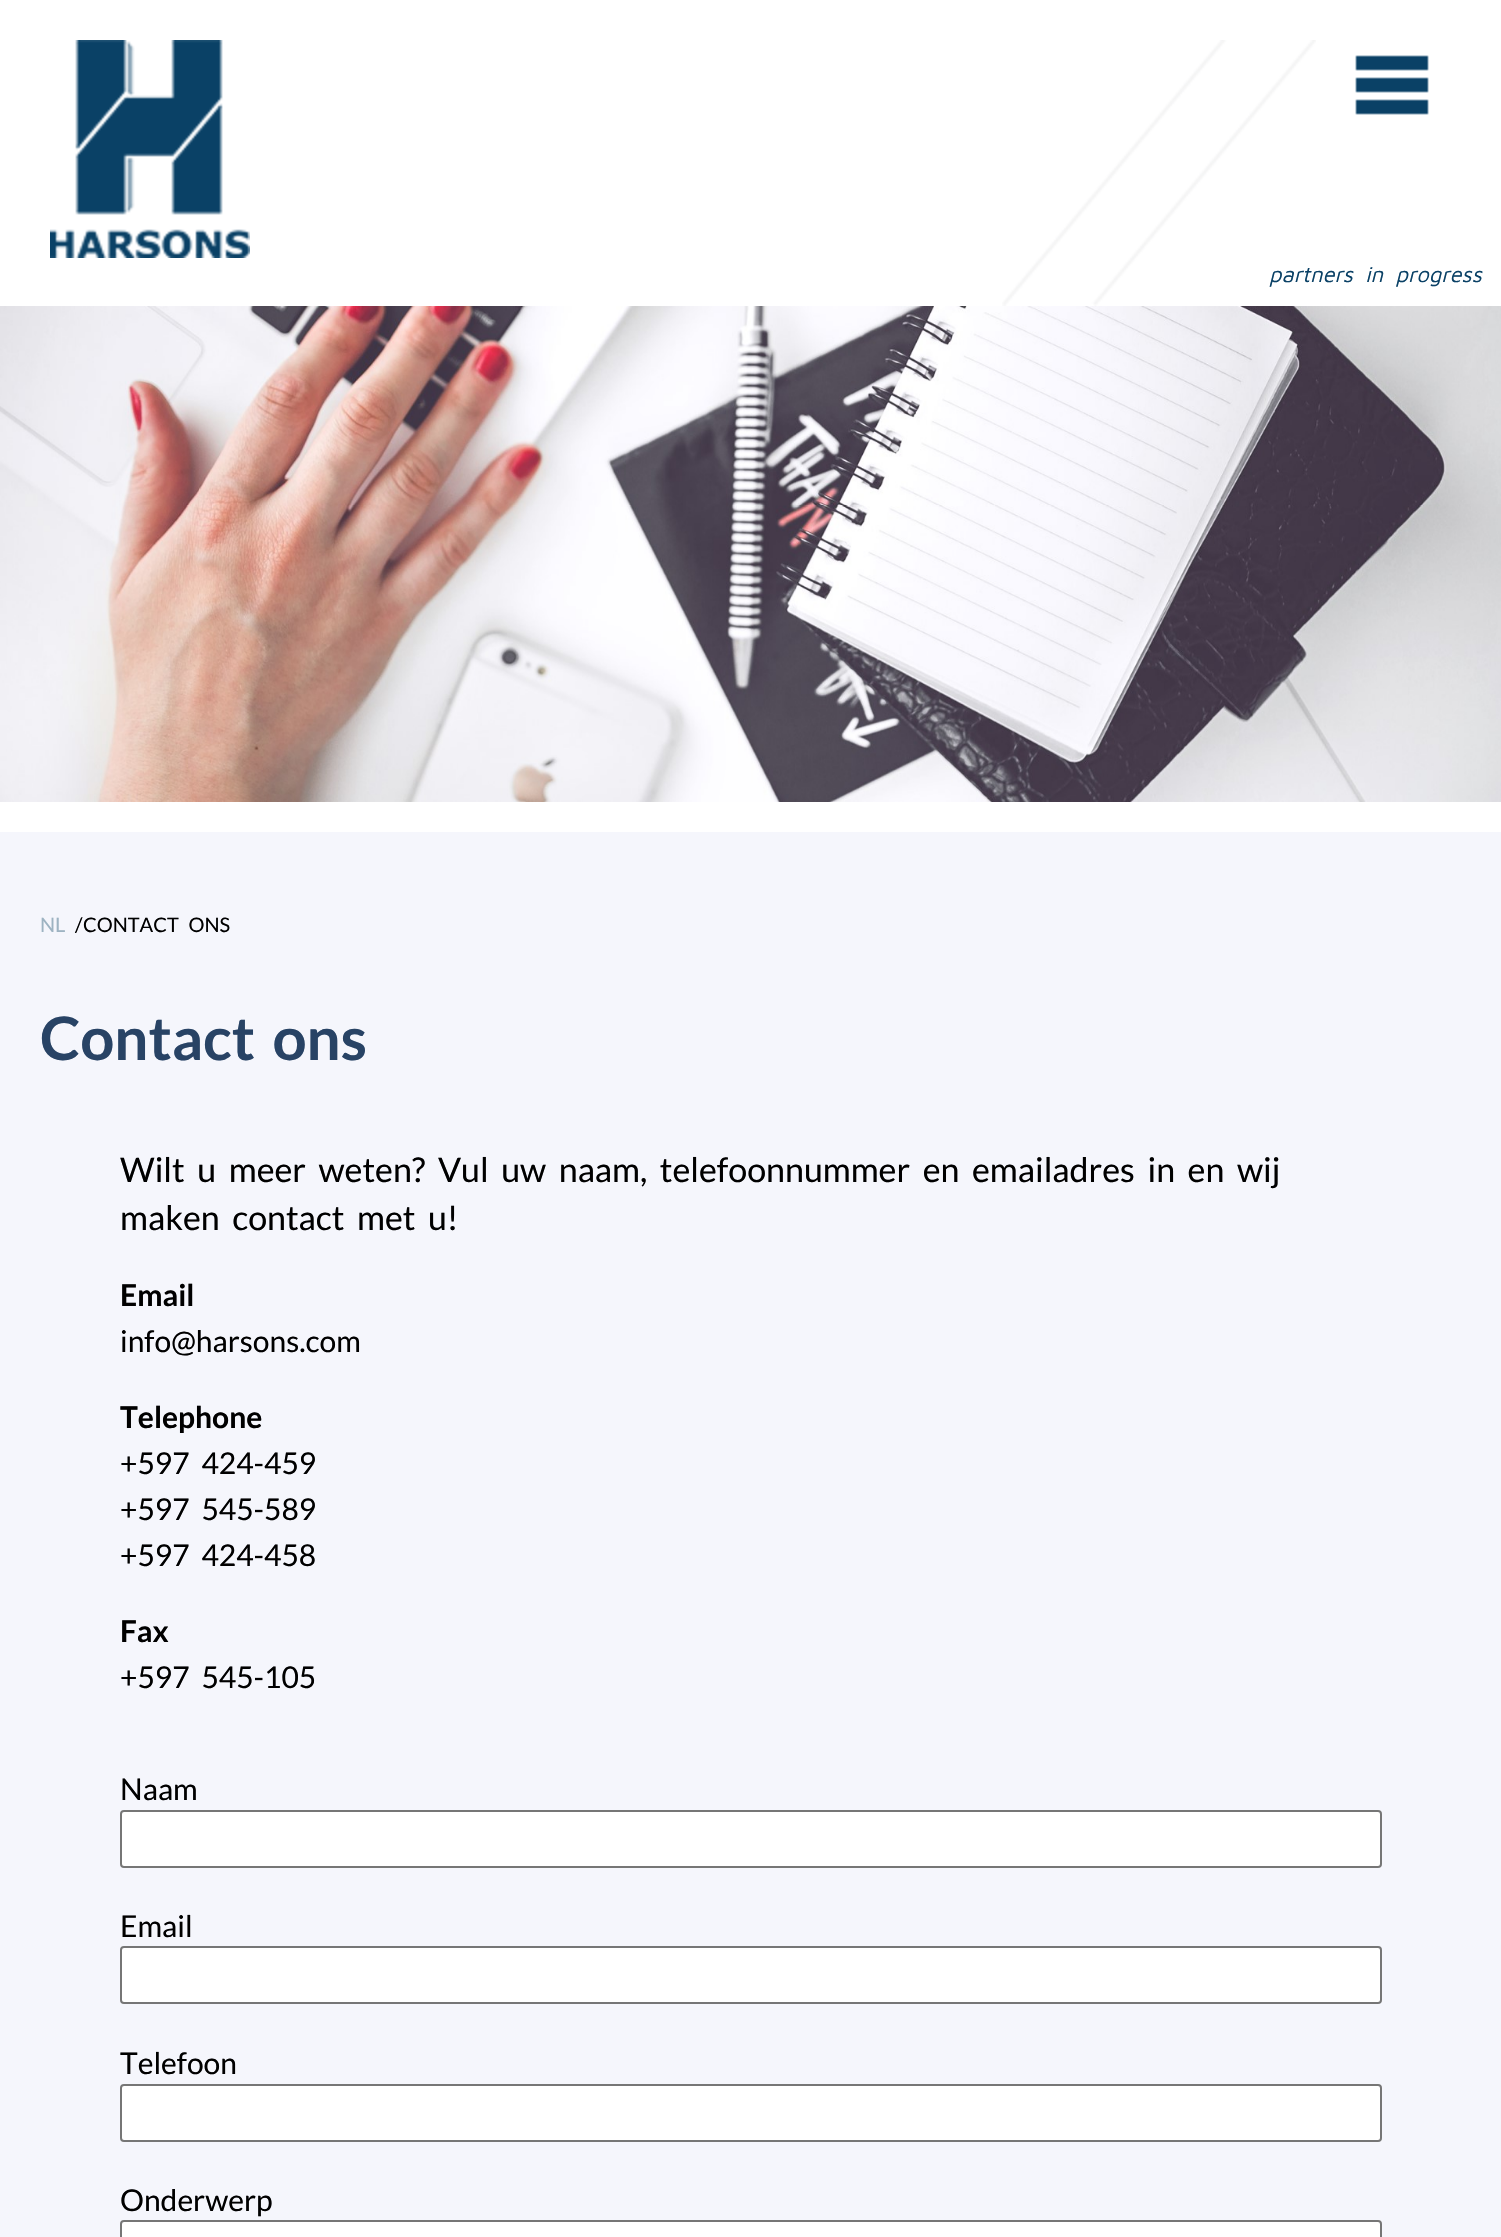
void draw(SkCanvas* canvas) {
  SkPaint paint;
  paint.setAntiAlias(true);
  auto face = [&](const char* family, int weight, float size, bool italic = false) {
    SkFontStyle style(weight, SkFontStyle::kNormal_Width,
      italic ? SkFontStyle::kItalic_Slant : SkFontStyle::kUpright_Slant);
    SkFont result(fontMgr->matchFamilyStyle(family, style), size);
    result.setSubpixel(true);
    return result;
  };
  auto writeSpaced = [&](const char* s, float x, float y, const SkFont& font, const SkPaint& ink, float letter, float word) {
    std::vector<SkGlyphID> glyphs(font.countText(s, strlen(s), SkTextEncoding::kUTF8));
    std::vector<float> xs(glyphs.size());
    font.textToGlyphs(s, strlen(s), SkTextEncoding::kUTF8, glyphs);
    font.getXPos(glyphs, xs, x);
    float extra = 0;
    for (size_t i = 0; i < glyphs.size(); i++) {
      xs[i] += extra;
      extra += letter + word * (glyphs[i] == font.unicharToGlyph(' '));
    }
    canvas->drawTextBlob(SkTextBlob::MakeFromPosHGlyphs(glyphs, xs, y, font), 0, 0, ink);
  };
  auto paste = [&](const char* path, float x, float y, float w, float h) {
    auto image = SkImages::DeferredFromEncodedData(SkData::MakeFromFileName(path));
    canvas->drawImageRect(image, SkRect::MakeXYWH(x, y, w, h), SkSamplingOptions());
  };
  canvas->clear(0xffffffff);
  paste("img/1.png", 1002, 40, 314, 266);
  paste("img/2.png", 50, 40, 200, 218);
  paste("img/3.png", 1355, 55, 74, 60);
  paste("img/4.png", 0, 306, 1501, 496);
  paint.setColor(0xfff5f6fc);
  canvas->drawRect(SkRect::MakeXYWH(0, 832, 1501, 1405), paint);
  paint.setColor(0xffffffff);
  canvas->drawRoundRect(SkRect::MakeXYWH(121, 1811, 1260, 56), 3, 3, paint);
  paint.setStroke(true);
  paint.setStrokeWidth(2);
  paint.setColor(0xff767676);
  canvas->drawRoundRect(SkRect::MakeXYWH(121, 1811, 1260, 56), 3, 3, paint);
  paint.setStroke(false);
  paint.setColor(0xffffffff);
  canvas->drawRoundRect(SkRect::MakeXYWH(121, 1947, 1260, 56), 3, 3, paint);
  paint.setStroke(true);
  paint.setColor(0xff767676);
  canvas->drawRoundRect(SkRect::MakeXYWH(121, 1947, 1260, 56), 3, 3, paint);
  paint.setStroke(false);
  paint.setColor(0xffffffff);
  canvas->drawRoundRect(SkRect::MakeXYWH(121, 2085, 1260, 56), 3, 3, paint);
  paint.setStroke(true);
  paint.setColor(0xff767676);
  canvas->drawRoundRect(SkRect::MakeXYWH(121, 2085, 1260, 56), 3, 3, paint);
  paint.setStroke(false);
  paint.setColor(0xffffffff);
  canvas->drawRoundRect(SkRect::MakeXYWH(121, 2221, 1260, 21), 3, 3, paint);
  paint.setStroke(true);
  paint.setColor(0xff767676);
  canvas->drawRoundRect(SkRect::MakeXYWH(121, 2221, 1260, 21), 3, 3, paint);
  auto f0 = face("Maven Pro", 400, 22, true);
  paint.setStroke(false);
  paint.setColor(0xff0a4166);
  writeSpaced("partners in progress", 1269, 282, f0, paint, 0, 6);
  auto f1 = face("Lato", 400, 20);
  paint.setColor(0xff9db3c2);
  canvas->drawString("NL", 40, 932, f1, paint);
  paint.setColor(0xff000000);
  canvas->drawString("/", 75, 932, f1, paint);
  writeSpaced("CONTACT ONS", 83, 932, f1, paint, 0, 6);
  auto f2 = face("Lato", 700, 60);
  paint.setColor(0xff284365);
  writeSpaced("Contact ons", 40, 1060, f2, paint, 0, 6);
  auto f3 = face("Lato", 400, 34);
  paint.setColor(0xff000000);
  writeSpaced("Wilt u meer weten? Vul uw naam, telefoonnummer en emailadres in en wij", 120, 1182, f3, paint, 0, 6);
  writeSpaced("maken contact met u!", 120, 1230, f3, paint, 0, 6);
  auto f4 = face("Lato", 700, 30);
  canvas->drawString("Email", 120, 1306, f4, paint);
  auto f5 = face("Lato", 400, 30);
  canvas->drawString("info@harsons.com", 120, 1352, f5, paint);
  canvas->drawString("Telephone", 120, 1428, f4, paint);
  {
    const struct { const char* s; float x, y; } items[] = {
      {"+597 424-459", 120, 1474},
      {"+597 545-589", 120, 1520},
      {"+597 424-458", 120, 1566},
    };
    for (auto [s, x, y] : items) {
      writeSpaced(s, x, y, f5, paint, 0, 6);
    }
  }
  canvas->drawString("Fax", 120, 1642, f4, paint);
  writeSpaced("+597 545-105", 120, 1688, f5, paint, 0, 6);
  {
    const struct { const char* s; float x, y; } items[] = {
      {"Naam", 120, 1800},
      {"Email", 120, 1937},
      {"Telefoon", 120, 2074},
      {"Onderwerp", 120, 2211},
    };
    for (auto [s, x, y] : items) {
      canvas->drawString(s, x, y, f5, paint);
    }
  }
}
